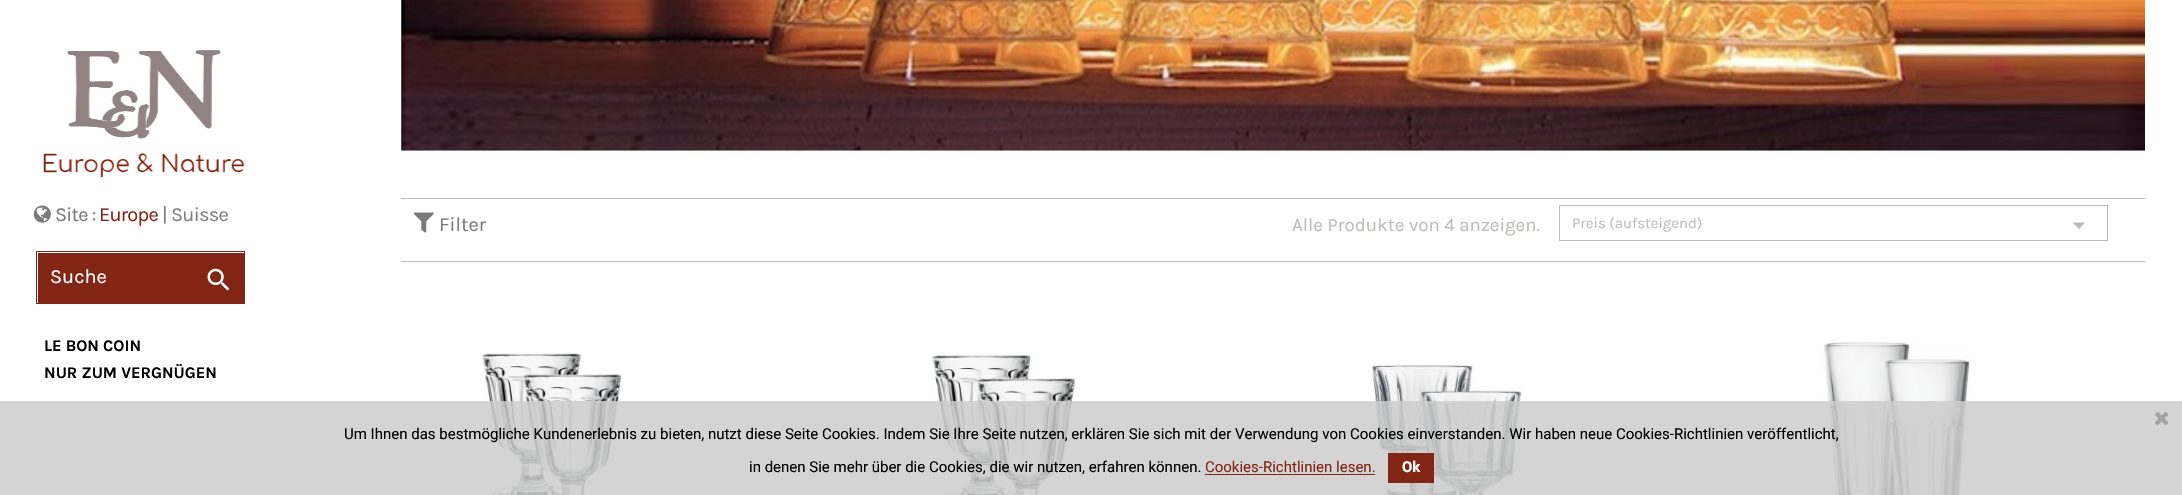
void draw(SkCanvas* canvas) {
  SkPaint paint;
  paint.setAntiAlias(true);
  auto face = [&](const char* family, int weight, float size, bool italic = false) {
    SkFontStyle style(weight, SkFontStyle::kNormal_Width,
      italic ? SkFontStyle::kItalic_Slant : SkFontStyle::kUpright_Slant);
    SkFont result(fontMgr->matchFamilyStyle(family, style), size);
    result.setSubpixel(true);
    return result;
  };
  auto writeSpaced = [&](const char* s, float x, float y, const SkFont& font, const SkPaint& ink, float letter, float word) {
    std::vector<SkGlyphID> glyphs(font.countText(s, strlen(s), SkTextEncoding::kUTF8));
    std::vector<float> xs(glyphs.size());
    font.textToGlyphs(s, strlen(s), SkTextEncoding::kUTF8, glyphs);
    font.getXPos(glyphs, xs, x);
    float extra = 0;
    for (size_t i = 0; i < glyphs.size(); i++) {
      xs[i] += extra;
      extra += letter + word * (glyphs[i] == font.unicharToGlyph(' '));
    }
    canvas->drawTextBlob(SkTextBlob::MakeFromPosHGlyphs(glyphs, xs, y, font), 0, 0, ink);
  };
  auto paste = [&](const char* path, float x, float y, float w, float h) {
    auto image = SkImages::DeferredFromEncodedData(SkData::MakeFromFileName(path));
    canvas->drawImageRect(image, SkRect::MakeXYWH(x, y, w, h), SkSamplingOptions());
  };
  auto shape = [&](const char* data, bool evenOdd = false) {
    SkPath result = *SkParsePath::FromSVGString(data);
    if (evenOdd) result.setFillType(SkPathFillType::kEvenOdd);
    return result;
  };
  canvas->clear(0xffffffff);
  paste("img/1.png", 43, 50, 201, 128);
  paste("img/2.png", 33, 205, 18, 18);
  paint.setColor(0xff822515);
  canvas->drawRect(SkRect::MakeXYWH(38, 253, 206, 50), paint);
  paint.setStroke(true);
  paint.setStrokeWidth(1);
  canvas->drawRect(SkRect::MakeXYWH(36.5f, 251.5f, 208, 52), paint);
  paste("img/3.png", 207, 268, 23, 23);
  paste("img/4.png", 401, 0, 1744, 156);
  paint.setStroke(false);
  paint.setColor(0xffbcbcb8);
  canvas->drawRect(SkRect::MakeXYWH(401, 198, 1744, 1), paint);
  canvas->drawRect(SkRect::MakeXYWH(401, 261, 1744, 1), paint);
  paste("img/5.png", 413, 212, 21, 21);
  paint.setStroke(true);
  canvas->drawRect(SkRect::MakeXYWH(1559.5f, 205.5f, 548, 35), paint);
  paint.setStroke(false);
  canvas->drawPath(shape("M2072.5 222.5H2085L2079 229Z"), paint);
  paste("img/6.png", 482, 353, 140, 142);
  paste("img/7.png", 929, 354, 147, 141);
  paste("img/8.png", 1368, 363, 156, 132);
  paste("img/9.png", 1823, 342, 147, 153);
  paint.setColor(0xd9cccccc);
  canvas->drawRect(SkRect::MakeXYWH(0, 401, 2182, 94), paint);
  paste("img/10.png", 2155, 412, 14, 14);
  paint.setColor(0xff822515);
  canvas->drawRect(SkRect::MakeXYWH(1205, 474, 170, 1), paint);
  canvas->drawRect(SkRect::MakeXYWH(1388, 453, 46, 30), paint);
  auto f0 = face("Karla", 400, 20);
  paint.setColor(0xff7a7a7a);
  writeSpaced("Site :", 55, 221, f0, paint, -0.75f, 0);
  paint.setColor(0xff822515);
  writeSpaced("Europe", 99, 221, f0, paint, -0.75f, 0);
  paint.setColor(0xff7a7a7a);
  writeSpaced("|", 162, 221, f0, paint, -0.75f, 0);
  paint.setColor(0xff808080);
  writeSpaced("Suisse", 171, 221, f0, paint, -0.75f, 0);
  paint.setColor(0xffffffff);
  canvas->drawString("Suche", 50, 283, f0, paint);
  auto f1 = face("Karla", 700, 16.25f);
  paint.setColor(0xff000000);
  canvas->drawString("LE BON COIN", 44, 351, f1, paint);
  canvas->drawString("NUR ZUM VERGNÜGEN", 44, 378, f1, paint);
  paint.setColor(0xff7a7a7a);
  canvas->drawString("Filter", 439, 231, f0, paint);
  auto f2 = face("Karla", 400, 18.75f);
  paint.setColor(0xffbcbcb8);
  canvas->drawString("Alle Produkte von 4 anzeigen.", 1292, 231, f2, paint);
  auto f3 = face("Karla", 400, 15);
  canvas->drawString("Preis (aufsteigend)", 1572, 228, f3, paint);
  auto f4 = face("Roboto", 400, 15);
  paint.setColor(0xff000000);
  canvas->drawString("Um Ihnen das bestmögliche Kundenerlebnis zu bieten, nutzt diese Seite Cookies. Indem Sie Ihre Seite nutzen, erklären Sie sich mit der Verwendung von Cookies einverstanden. Wir haben neue Cookies-Richtlinien veröffentlicht,", 344, 439, f4, paint);
  canvas->drawString("in denen Sie mehr über die Cookies, die wir nutzen, erfahren können.", 749, 472, f4, paint);
  paint.setColor(0xff822515);
  canvas->drawString("Cookies-Richtlinien lesen.", 1205, 472, f4, paint);
  auto f5 = face("Roboto", 700, 15);
  paint.setColor(0xffffffff);
  canvas->drawString("Ok", 1402, 472, f5, paint);
}
